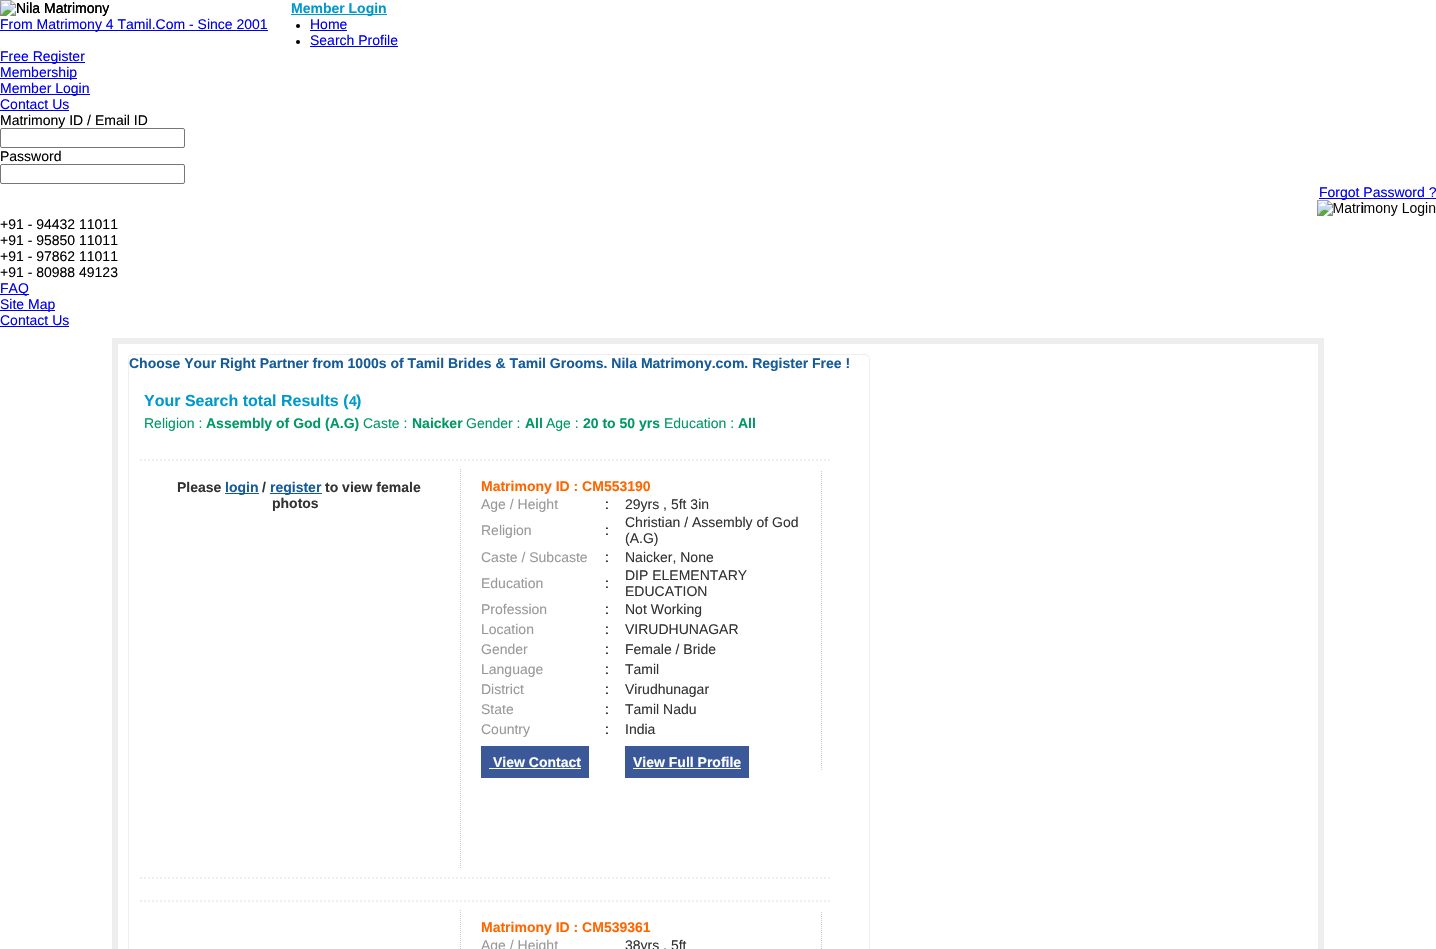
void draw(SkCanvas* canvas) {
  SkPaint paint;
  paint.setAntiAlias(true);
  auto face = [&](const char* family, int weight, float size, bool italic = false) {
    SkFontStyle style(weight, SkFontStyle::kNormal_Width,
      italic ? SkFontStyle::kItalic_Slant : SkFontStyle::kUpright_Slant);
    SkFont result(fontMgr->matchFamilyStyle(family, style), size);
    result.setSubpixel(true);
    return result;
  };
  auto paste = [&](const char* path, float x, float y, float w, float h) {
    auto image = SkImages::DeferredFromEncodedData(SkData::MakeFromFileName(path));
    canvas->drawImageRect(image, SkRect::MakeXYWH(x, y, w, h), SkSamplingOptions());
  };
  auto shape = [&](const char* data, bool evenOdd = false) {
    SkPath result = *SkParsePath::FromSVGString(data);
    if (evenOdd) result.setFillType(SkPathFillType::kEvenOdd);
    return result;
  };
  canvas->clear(0xffffffff);
  paste("img/1.png", 0, 0, 109, 16);
  paint.setColor(0xff0099cc);
  canvas->drawRect(SkRect::MakeXYWH(291, 14, 96, 1), paint);
  paint.setColor(0xff0000ee);
  canvas->drawRect(SkRect::MakeXYWH(0, 30, 268, 1), paint);
  paint.setColor(0xff000000);
  canvas->drawCircle(298, 26, 2, paint);
  paint.setColor(0xff0000ee);
  canvas->drawRect(SkRect::MakeXYWH(310, 30, 37, 1), paint);
  paint.setColor(0xff000000);
  canvas->drawCircle(298, 42, 2, paint);
  {
    const struct { float x, y, w, h; SkColor color; } items[] = {
      {310, 46, 88, 1, 0xff0000ee},
      {0, 62, 85, 1, 0xff0000ee},
      {0, 78, 77, 1, 0xff0000ee},
      {0, 94, 90, 1, 0xff0000ee},
      {0, 110, 69, 1, 0xff0000ee},
    };
    for (auto [x, y, w, h, color] : items) {
      paint.setColor(color);
      canvas->drawRect(SkRect::MakeXYWH(x, y, w, h), paint);
    }
  }
  paint.setStroke(true);
  paint.setStrokeWidth(1);
  paint.setColor(0xff767676);
  canvas->drawRoundRect(SkRect::MakeXYWH(0.5f, 128.5f, 184, 19), 1.5f, 1.5f, paint);
  canvas->drawRoundRect(SkRect::MakeXYWH(0.5f, 164.5f, 184, 19), 1.5f, 1.5f, paint);
  paint.setStroke(false);
  paint.setColor(0xff0000ee);
  canvas->drawRect(SkRect::MakeXYWH(1319, 198, 117, 1), paint);
  paste("img/2.png", 1317, 200, 119, 16);
  {
    const struct { float x, y, w, h; SkColor color; } items[] = {
      {0, 294, 29, 1, 0xff0000ee},
      {0, 310, 55, 1, 0xff0000ee},
      {0, 326, 69, 1, 0xff0000ee},
    };
    for (auto [x, y, w, h, color] : items) {
      paint.setColor(color);
      canvas->drawRect(SkRect::MakeXYWH(x, y, w, h), paint);
    }
  }
  paint.setStroke(true);
  paint.setStrokeWidth(6);
  paint.setColor(0xffeeeeee);
  canvas->drawRect(SkRect::MakeXYWH(115, 341, 1206, 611), paint);
  paint.setStrokeWidth(1);
  canvas->drawRoundRect(SkRect::MakeXYWH(128.5f, 354.5f, 741, 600), 4.5f, 4.5f, paint);
  paint.setStrokeWidth(2);
  paint.setPathEffect(SkDashPathEffect::Make({{2, 2}}, 0));
  canvas->drawPath(shape("M140 460H830"), paint);
  paint.setPathEffect(nullptr);
  paint.setPathEffect(SkDashPathEffect::Make({{2, 2}}, 0));
  canvas->drawPath(shape("M140 878H830"), paint);
  paint.setPathEffect(nullptr);
  paint.setStrokeWidth(1);
  paint.setColor(0xffcccccc);
  paint.setPathEffect(SkDashPathEffect::Make({{1, 1}}, 0));
  canvas->drawPath(shape("M460.5 469V869"), paint);
  paint.setPathEffect(nullptr);
  paint.setStroke(false);
  paint.setColor(0xff165c98);
  canvas->drawRect(SkRect::MakeXYWH(225, 493, 34, 1), paint);
  canvas->drawRect(SkRect::MakeXYWH(270, 493, 52, 1), paint);
  paint.setStroke(true);
  paint.setColor(0xffcccccc);
  paint.setPathEffect(SkDashPathEffect::Make({{1, 1}}, 0));
  canvas->drawPath(shape("M821.5 471V770"), paint);
  paint.setPathEffect(nullptr);
  paint.setStroke(false);
  {
    const struct { float x, y, w, h; SkColor color; } items[] = {
      {481, 746, 108, 32, 0xff3b5998},
      {489, 768, 92, 1, 0xffffffff},
      {625, 746, 124, 32, 0xff3b5998},
      {633, 768, 108, 1, 0xffffffff},
    };
    for (auto [x, y, w, h, color] : items) {
      paint.setColor(color);
      canvas->drawRect(SkRect::MakeXYWH(x, y, w, h), paint);
    }
  }
  paint.setStroke(true);
  paint.setStrokeWidth(2);
  paint.setColor(0xffeeeeee);
  paint.setPathEffect(SkDashPathEffect::Make({{2, 2}}, 0));
  canvas->drawPath(shape("M140 901H830"), paint);
  paint.setPathEffect(nullptr);
  paint.setStrokeWidth(1);
  paint.setColor(0xffcccccc);
  paint.setPathEffect(SkDashPathEffect::Make({{1, 1}}, 0));
  canvas->drawPath(shape("M460.5 910V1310"), paint);
  paint.setPathEffect(nullptr);
  paint.setPathEffect(SkDashPathEffect::Make({{1, 1}}, 0));
  canvas->drawPath(shape("M821.5 912V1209"), paint);
  paint.setPathEffect(nullptr);
  auto f0 = face("Liberation Sans", 400, 14);
  paint.setStroke(false);
  paint.setColor(0xff000000);
  canvas->drawString("Nila Matrimony", 16, 13, f0, paint);
  auto f1 = face("Liberation Sans", 700, 14);
  paint.setColor(0xff0099cc);
  canvas->drawString("Member Login", 291, 13, f1, paint);
  paint.setColor(0xff0000ee);
  {
    const struct { const char* s; float x, y; } items[] = {
      {"From Matrimony 4 Tamil.Com - Since 2001", 0, 29},
      {"Home", 310, 29},
      {"Search Profile", 310, 45},
      {"Free Register", 0, 61},
      {"Membership", 0, 77},
      {"Member Login", 0, 93},
      {"Contact Us", 0, 109},
    };
    for (auto [s, x, y] : items) {
      canvas->drawString(s, x, y, f0, paint);
    }
  }
  paint.setColor(0xff000000);
  canvas->drawString("Matrimony ID / Email ID", 0, 125, f0, paint);
  canvas->drawString("Password", 0, 161, f0, paint);
  paint.setColor(0xff0000ee);
  canvas->drawString("Forgot Password ?", 1319, 197, f0, paint);
  paint.setColor(0xff000000);
  {
    const struct { const char* s; float x, y; } items[] = {
      {"i", 1361, 213},
      {"+91 - 94432 11011", 0, 229},
      {"+91 - 95850 11011", 0, 245},
      {"+91 - 97862 11011", 0, 261},
      {"+91 - 80988 49123", 0, 277},
    };
    for (auto [s, x, y] : items) {
      canvas->drawString(s, x, y, f0, paint);
    }
  }
  paint.setColor(0xff0000ee);
  {
    const struct { const char* s; float x, y; } items[] = {
      {"FAQ", 0, 293},
      {"Site Map", 0, 309},
      {"Contact Us", 0, 325},
    };
    for (auto [s, x, y] : items) {
      canvas->drawString(s, x, y, f0, paint);
    }
  }
  paint.setColor(0xff165c98);
  canvas->drawString("Choose Your Right Partner from 1000s of Tamil Brides & Tamil Grooms. Nila Matrimony.com. Register Free !", 129, 368, f1, paint);
  auto f2 = face("Liberation Sans", 700, 16);
  paint.setColor(0xff0099cc);
  canvas->drawString("Your Search total Results (", 144, 406, f2, paint);
  canvas->drawString("4", 349, 406, f1, paint);
  canvas->drawString(")", 356, 406, f2, paint);
  paint.setColor(0xff009966);
  canvas->drawString("Religion :", 144, 428, f0, paint);
  canvas->drawString("Assembly of God (A.G)", 206, 428, f1, paint);
  canvas->drawString("Caste :", 363, 428, f0, paint);
  canvas->drawString("Naicker", 412, 428, f1, paint);
  canvas->drawString("Gender :", 466, 428, f0, paint);
  canvas->drawString("All", 525, 428, f1, paint);
  canvas->drawString("Age :", 546, 428, f0, paint);
  canvas->drawString("20 to 50 yrs", 583, 428, f1, paint);
  canvas->drawString("Education :", 664, 428, f0, paint);
  canvas->drawString("All", 738, 428, f1, paint);
  paint.setColor(0xff333333);
  canvas->drawString("Please", 177, 492, f1, paint);
  paint.setColor(0xff165c98);
  canvas->drawString("login", 225, 492, f1, paint);
  paint.setColor(0xff333333);
  canvas->drawString("/", 262, 492, f1, paint);
  paint.setColor(0xff165c98);
  canvas->drawString("register", 270, 492, f1, paint);
  paint.setColor(0xff333333);
  canvas->drawString("to view female", 325, 492, f1, paint);
  canvas->drawString("photos", 272, 508, f1, paint);
  paint.setColor(0xffff6600);
  canvas->drawString("Matrimony ID : CM553190", 481, 491, f1, paint);
  paint.setColor(0xff999999);
  canvas->drawString("Age / Height", 481, 509, f0, paint);
  paint.setColor(0xff000000);
  canvas->drawString(":", 605, 509, f0, paint);
  paint.setColor(0xff333333);
  canvas->drawString("29yrs , 5ft 3in", 625, 509, f0, paint);
  paint.setColor(0xff999999);
  canvas->drawString("Religion", 481, 535, f0, paint);
  paint.setColor(0xff000000);
  canvas->drawString(":", 605, 535, f0, paint);
  paint.setColor(0xff333333);
  canvas->drawString("Christian / Assembly of God", 625, 527, f0, paint);
  canvas->drawString("(A.G)", 625, 543, f0, paint);
  paint.setColor(0xff999999);
  canvas->drawString("Caste / Subcaste", 481, 562, f0, paint);
  paint.setColor(0xff000000);
  canvas->drawString(":", 605, 562, f0, paint);
  paint.setColor(0xff333333);
  canvas->drawString("Naicker, None", 625, 562, f0, paint);
  paint.setColor(0xff999999);
  canvas->drawString("Education", 481, 588, f0, paint);
  paint.setColor(0xff000000);
  canvas->drawString(":", 605, 588, f0, paint);
  paint.setColor(0xff333333);
  canvas->drawString("DIP ELEMENTARY", 625, 580, f0, paint);
  canvas->drawString("EDUCATION", 625, 596, f0, paint);
  paint.setColor(0xff999999);
  canvas->drawString("Profession", 481, 614, f0, paint);
  paint.setColor(0xff000000);
  canvas->drawString(":", 605, 614, f0, paint);
  paint.setColor(0xff333333);
  canvas->drawString("Not Working", 625, 614, f0, paint);
  paint.setColor(0xff999999);
  canvas->drawString("Location", 481, 634, f0, paint);
  paint.setColor(0xff000000);
  canvas->drawString(":", 605, 634, f0, paint);
  paint.setColor(0xff333333);
  canvas->drawString("VIRUDHUNAGAR", 625, 634, f0, paint);
  paint.setColor(0xff999999);
  canvas->drawString("Gender", 481, 654, f0, paint);
  paint.setColor(0xff000000);
  canvas->drawString(":", 605, 654, f0, paint);
  paint.setColor(0xff333333);
  canvas->drawString("Female / Bride", 625, 654, f0, paint);
  paint.setColor(0xff999999);
  canvas->drawString("Language", 481, 674, f0, paint);
  paint.setColor(0xff000000);
  canvas->drawString(":", 605, 674, f0, paint);
  paint.setColor(0xff333333);
  canvas->drawString("Tamil", 625, 674, f0, paint);
  paint.setColor(0xff999999);
  canvas->drawString("District", 481, 694, f0, paint);
  paint.setColor(0xff000000);
  canvas->drawString(":", 605, 694, f0, paint);
  paint.setColor(0xff333333);
  canvas->drawString("Virudhunagar", 625, 694, f0, paint);
  paint.setColor(0xff999999);
  canvas->drawString("State", 481, 714, f0, paint);
  paint.setColor(0xff000000);
  canvas->drawString(":", 605, 714, f0, paint);
  paint.setColor(0xff333333);
  canvas->drawString("Tamil Nadu", 625, 714, f0, paint);
  paint.setColor(0xff999999);
  canvas->drawString("Country", 481, 734, f0, paint);
  paint.setColor(0xff000000);
  canvas->drawString(":", 605, 734, f0, paint);
  paint.setColor(0xff333333);
  canvas->drawString("India", 625, 734, f0, paint);
  paint.setColor(0xffffffff);
  canvas->drawString("View Contact", 493, 767, f1, paint);
  canvas->drawString("View Full Profile", 633, 767, f1, paint);
  paint.setColor(0xffff6600);
  canvas->drawString("Matrimony ID : CM539361", 481, 932, f1, paint);
  paint.setColor(0xff999999);
  canvas->drawString("Age / Height", 481, 950, f0, paint);
  paint.setColor(0xff333333);
  canvas->drawString("38yrs , 5ft", 625, 950, f0, paint);
}
